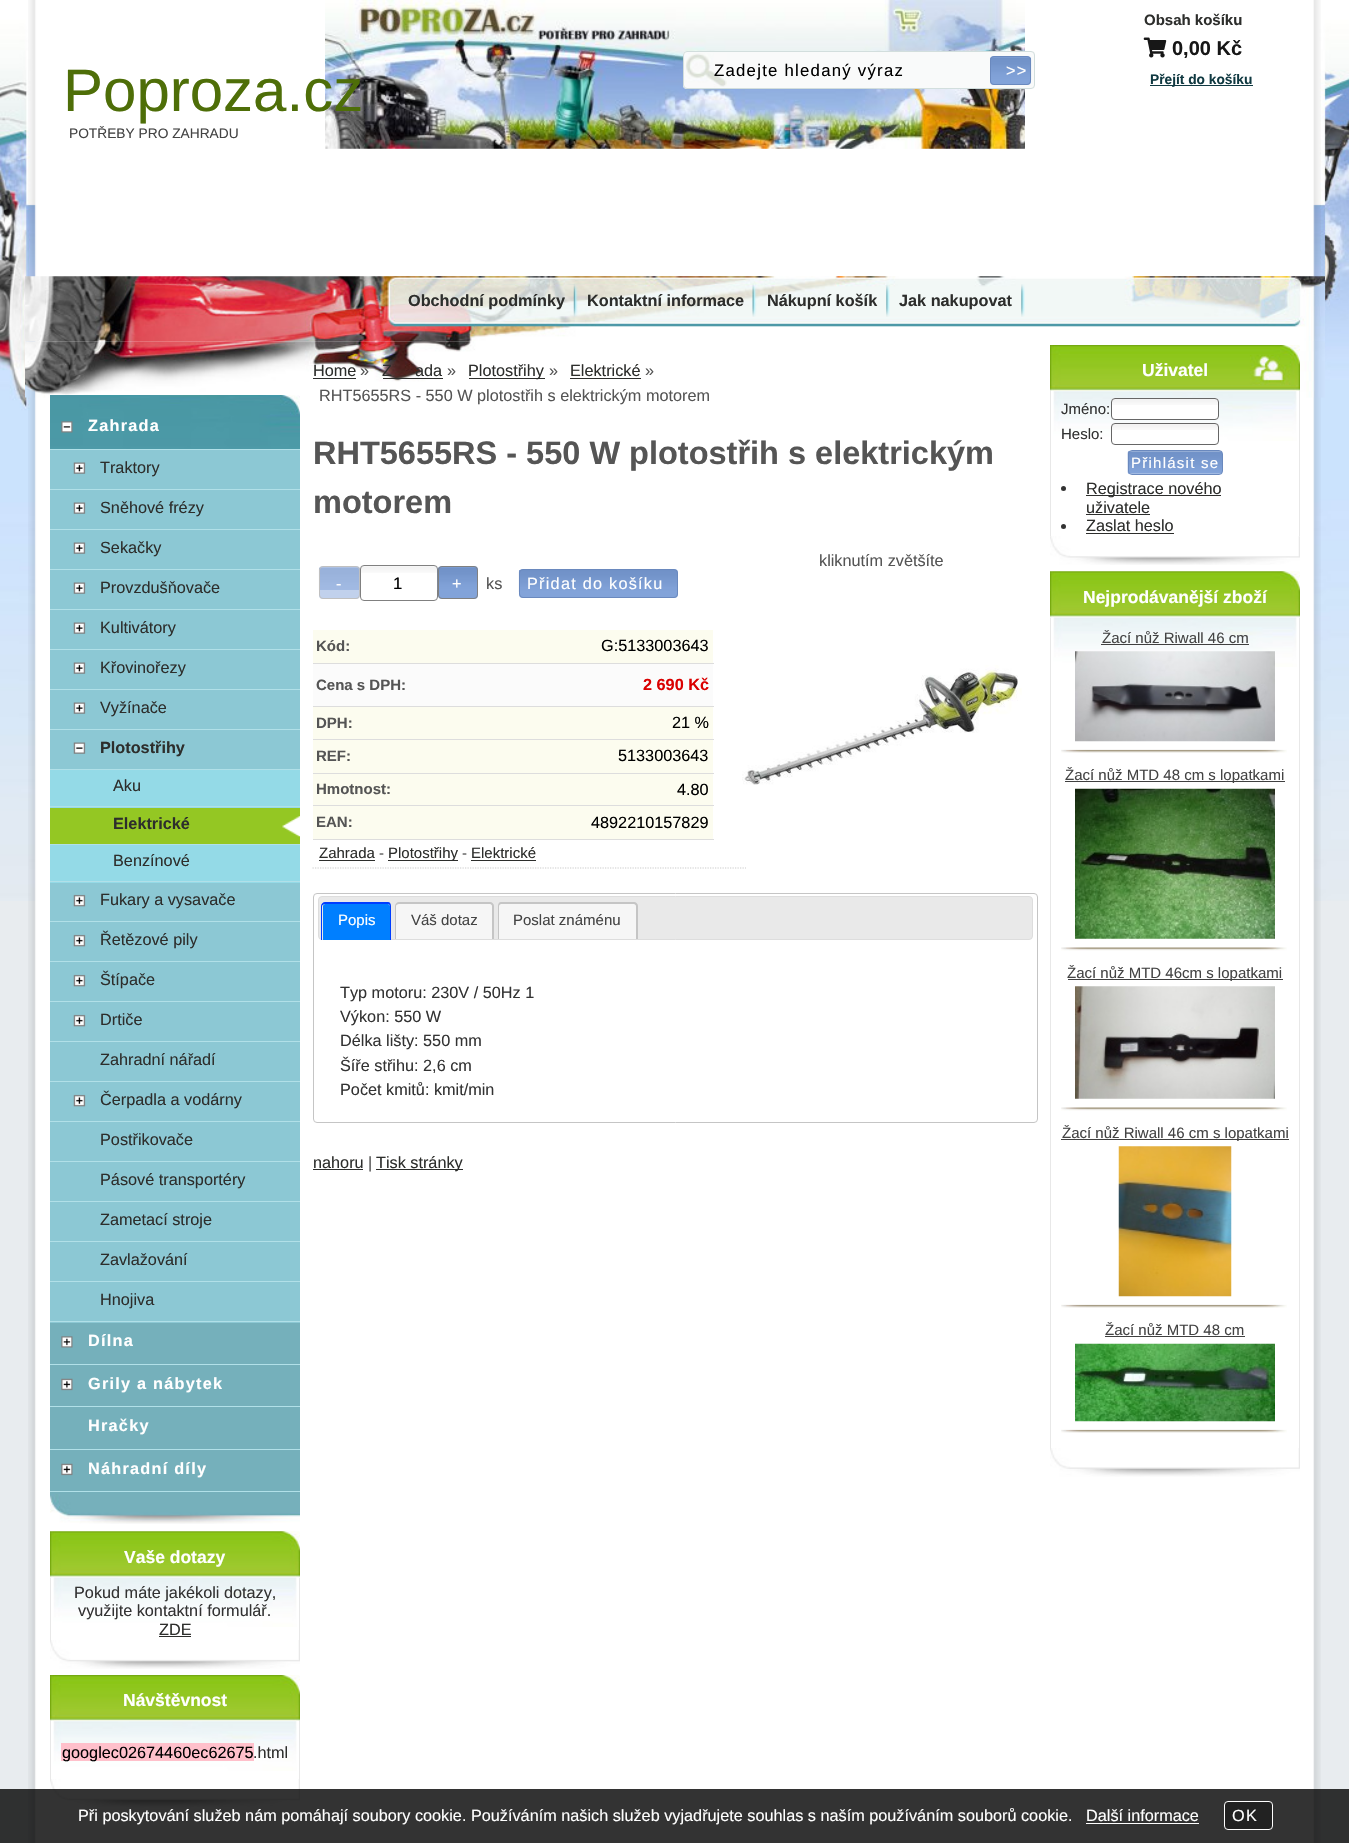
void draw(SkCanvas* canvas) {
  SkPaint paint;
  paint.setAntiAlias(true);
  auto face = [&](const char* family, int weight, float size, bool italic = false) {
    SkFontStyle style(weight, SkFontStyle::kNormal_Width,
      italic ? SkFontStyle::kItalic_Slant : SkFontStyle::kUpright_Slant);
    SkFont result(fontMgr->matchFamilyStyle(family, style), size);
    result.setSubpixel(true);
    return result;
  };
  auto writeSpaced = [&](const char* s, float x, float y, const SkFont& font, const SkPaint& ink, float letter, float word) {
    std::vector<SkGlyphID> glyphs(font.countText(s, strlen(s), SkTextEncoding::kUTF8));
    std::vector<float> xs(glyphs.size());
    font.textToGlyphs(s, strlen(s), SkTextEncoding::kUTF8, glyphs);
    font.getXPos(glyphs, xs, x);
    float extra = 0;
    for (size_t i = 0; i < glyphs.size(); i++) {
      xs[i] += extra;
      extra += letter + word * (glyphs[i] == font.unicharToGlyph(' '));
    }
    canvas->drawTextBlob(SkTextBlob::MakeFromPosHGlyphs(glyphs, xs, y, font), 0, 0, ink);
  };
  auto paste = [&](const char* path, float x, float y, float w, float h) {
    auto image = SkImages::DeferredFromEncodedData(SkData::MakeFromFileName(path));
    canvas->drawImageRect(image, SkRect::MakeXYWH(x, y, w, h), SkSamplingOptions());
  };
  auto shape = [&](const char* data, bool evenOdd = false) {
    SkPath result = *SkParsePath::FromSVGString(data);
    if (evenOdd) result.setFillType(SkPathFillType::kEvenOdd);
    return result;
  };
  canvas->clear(0xffe8ecef);
  paste("img/1.png", 0, 0, 1349, 901);
  paste("img/2.png", 28, 0, 1293, 1843);
  paste("img/3.png", 325, 0, 700, 149);
  paint.setColor(0xff103941);
  canvas->drawRect(SkRect::MakeXYWH(1150, 85, 103, 1), paint);
  paste("img/4.png", 1143, 37, 24, 21);
  paint.setColor(0xfff9fafa);
  canvas->drawRoundRect(SkRect::MakeXYWH(683, 51, 352, 38), 4, 4, paint);
  paste("img/5.png", 683, 53, 44, 35);
  paint.setStroke(true);
  paint.setStrokeWidth(1);
  paint.setColor(0xffd2dedd);
  canvas->drawRoundRect(SkRect::MakeXYWH(683.5f, 51.5f, 351, 37), 3.5f, 3.5f, paint);
  paint.setStroke(false);
  paint.setColor(0xff82a3d9);
  canvas->drawRoundRect(SkRect::MakeXYWH(990, 56, 41, 29), 4, 4, paint);
  paste("img/6.png", 990, 57, 42, 23);
  paint.setStroke(true);
  paint.setColor(0xff6a89be);
  canvas->drawRoundRect(SkRect::MakeXYWH(990.5f, 56.5f, 40, 28), 3.5f, 3.5f, paint);
  paste("img/7.png", 25, 276, 1300, 66);
  paste("img/8.png", 573, 283, 5, 34);
  paste("img/9.png", 752, 283, 5, 34);
  paste("img/10.png", 886, 284, 4, 33);
  paste("img/11.png", 1021, 284, 4, 33);
  paste("img/12.png", 25, 341, 1300, 57);
  paint.setStroke(false);
  paint.setColor(0xff75b0bb);
  canvas->drawRect(SkRect::MakeXYWH(50, 1323, 250, 171), paint);
  paste("img/13.png", 50, 395, 250, 54);
  paint.setColor(0xffb1e0e8);
  canvas->drawRect(SkRect::MakeXYWH(50, 449, 250, 1), paint);
  paste("img/14.png", 61, 421, 12, 12);
  paint.setColor(0xff8cc8d4);
  canvas->drawRect(SkRect::MakeXYWH(50, 450, 250, 39), paint);
  paint.setColor(0xffb1e0e8);
  canvas->drawRect(SkRect::MakeXYWH(50, 489, 250, 1), paint);
  paste("img/15.png", 73, 462, 13, 12);
  paint.setColor(0xff8cc8d4);
  canvas->drawRect(SkRect::MakeXYWH(50, 490, 250, 39), paint);
  paint.setColor(0xffb1e0e8);
  canvas->drawRect(SkRect::MakeXYWH(50, 529, 250, 1), paint);
  paste("img/15.png", 73, 502, 13, 12);
  paint.setColor(0xff8cc8d4);
  canvas->drawRect(SkRect::MakeXYWH(50, 530, 250, 39), paint);
  paint.setColor(0xffb1e0e8);
  canvas->drawRect(SkRect::MakeXYWH(50, 569, 250, 1), paint);
  paste("img/15.png", 73, 542, 13, 12);
  paint.setColor(0xff8cc8d4);
  canvas->drawRect(SkRect::MakeXYWH(50, 570, 250, 39), paint);
  paint.setColor(0xffb1e0e8);
  canvas->drawRect(SkRect::MakeXYWH(50, 609, 250, 1), paint);
  paste("img/16.png", 73, 582, 13, 12);
  paint.setColor(0xff8cc8d4);
  canvas->drawRect(SkRect::MakeXYWH(50, 610, 250, 39), paint);
  paint.setColor(0xffb1e0e8);
  canvas->drawRect(SkRect::MakeXYWH(50, 649, 250, 1), paint);
  paste("img/15.png", 73, 622, 13, 12);
  paint.setColor(0xff8cc8d4);
  canvas->drawRect(SkRect::MakeXYWH(50, 650, 250, 39), paint);
  paint.setColor(0xffb1e0e8);
  canvas->drawRect(SkRect::MakeXYWH(50, 689, 250, 1), paint);
  paste("img/15.png", 73, 662, 13, 12);
  paint.setColor(0xff8cc8d4);
  canvas->drawRect(SkRect::MakeXYWH(50, 690, 250, 39), paint);
  paint.setColor(0xffb1e0e8);
  canvas->drawRect(SkRect::MakeXYWH(50, 729, 250, 1), paint);
  paste("img/15.png", 73, 702, 13, 12);
  paint.setColor(0xff8cc8d4);
  canvas->drawRect(SkRect::MakeXYWH(50, 730, 250, 39), paint);
  paint.setColor(0xffb1e0e8);
  canvas->drawRect(SkRect::MakeXYWH(50, 769, 250, 1), paint);
  paste("img/17.png", 73, 742, 13, 12);
  {
    const struct { float x, y, w, h; SkColor color; } items[] = {
      {50, 770, 250, 38, 0xff94dae7},
      {50, 806, 250, 1, 0xffb1e0e8},
      {50, 808, 250, 36, 0xff94c723},
    };
    for (auto [x, y, w, h, color] : items) {
      paint.setColor(color);
      canvas->drawRect(SkRect::MakeXYWH(x, y, w, h), paint);
    }
  }
  paste("img/18.png", 282, 816, 18, 21);
  {
    const struct { float x, y, w, h; SkColor color; } items[] = {
      {50, 844, 250, 1, 0xffb1e0e8},
      {50, 845, 250, 38, 0xff94dae7},
      {50, 881, 250, 1, 0xffb1e0e8},
      {50, 883, 250, 440, 0xff8cc8d4},
      {50, 921, 250, 1, 0xffb1e0e8},
    };
    for (auto [x, y, w, h, color] : items) {
      paint.setColor(color);
      canvas->drawRect(SkRect::MakeXYWH(x, y, w, h), paint);
    }
  }
  paste("img/19.png", 73, 894, 13, 13);
  canvas->drawRect(SkRect::MakeXYWH(50, 961, 250, 1), paint);
  paste("img/19.png", 73, 934, 13, 13);
  canvas->drawRect(SkRect::MakeXYWH(50, 1001, 250, 1), paint);
  paste("img/19.png", 73, 974, 13, 13);
  canvas->drawRect(SkRect::MakeXYWH(50, 1041, 250, 1), paint);
  paste("img/19.png", 73, 1014, 13, 13);
  canvas->drawRect(SkRect::MakeXYWH(50, 1081, 250, 1), paint);
  canvas->drawRect(SkRect::MakeXYWH(50, 1121, 250, 1), paint);
  paste("img/19.png", 73, 1094, 13, 13);
  {
    const struct { float x, y, w, h; SkColor color; } items[] = {
      {50, 1161, 250, 1, 0xffb1e0e8},
      {50, 1201, 250, 1, 0xffb1e0e8},
      {50, 1241, 250, 1, 0xffb1e0e8},
      {50, 1281, 250, 1, 0xffb1e0e8},
      {50, 1321, 250, 1, 0xffb1e0e8},
      {50, 1364, 250, 1, 0xffb1e0e8},
    };
    for (auto [x, y, w, h, color] : items) {
      paint.setColor(color);
      canvas->drawRect(SkRect::MakeXYWH(x, y, w, h), paint);
    }
  }
  paste("img/20.png", 61, 1336, 12, 12);
  canvas->drawRect(SkRect::MakeXYWH(50, 1406, 250, 1), paint);
  paste("img/21.png", 61, 1378, 12, 13);
  canvas->drawRect(SkRect::MakeXYWH(50, 1449, 250, 1), paint);
  canvas->drawRect(SkRect::MakeXYWH(50, 1491, 250, 1), paint);
  paste("img/21.png", 61, 1463, 12, 13);
  paste("img/22.png", 50, 1494, 250, 30);
  paste("img/23.png", 50, 1531, 250, 47);
  paste("img/24.png", 53, 1577, 244, 50);
  {
    const struct { float x, y, w, h; SkColor color; } items[] = {
      {299, 1578, 1, 62, 0xffe8e8e8},
      {50, 1578, 1, 62, 0xffe8e8e8},
      {159, 1636, 32, 1, 0xff2d2e2c},
    };
    for (auto [x, y, w, h, color] : items) {
      paint.setColor(color);
      canvas->drawRect(SkRect::MakeXYWH(x, y, w, h), paint);
    }
  }
  paste("img/25.png", 50, 1640, 250, 29);
  paste("img/26.png", 50, 1675, 250, 46);
  paste("img/27.png", 53, 1721, 244, 50);
  {
    const struct { float x, y, w, h; SkColor color; } items[] = {
      {299, 1721, 1, 58, 0xffe8e8e8},
      {50, 1721, 1, 58, 0xffe8e8e8},
      {61, 1743, 193, 18, 0xffffc0cb},
    };
    for (auto [x, y, w, h, color] : items) {
      paint.setColor(color);
      canvas->drawRect(SkRect::MakeXYWH(x, y, w, h), paint);
    }
  }
  paste("img/28.png", 50, 1779, 250, 29);
  {
    const struct { float x, y, w, h; SkColor color; } items[] = {
      {313, 378, 43, 1, 0xff2d2e2c},
      {383, 378, 60, 1, 0xff2d2e2c},
      {469, 378, 76, 1, 0xff2d2e2c},
      {570, 378, 71, 1, 0xff2d2e2c},
    };
    for (auto [x, y, w, h, color] : items) {
      paint.setColor(color);
      canvas->drawRect(SkRect::MakeXYWH(x, y, w, h), paint);
    }
  }
  paste("img/29.png", 742, 665, 280, 120);
  paint.setColor(0xffc1d1ec);
  canvas->drawRoundRect(SkRect::MakeXYWH(319, 566, 41, 33), 4, 4, paint);
  paste("img/30.png", 318, 567, 42, 23);
  paint.setStroke(true);
  paint.setColor(0xffc0c0c0);
  canvas->drawRoundRect(SkRect::MakeXYWH(319.5f, 566.5f, 40, 32), 3.5f, 3.5f, paint);
  paste("img/31.png", 360, 566, 77, 7);
  paint.setColor(0xff808080);
  canvas->drawRoundRect(SkRect::MakeXYWH(360.5f, 565.5f, 77, 35), 3.5f, 3.5f, paint);
  paint.setStroke(false);
  paint.setColor(0xff82a3d9);
  canvas->drawRoundRect(SkRect::MakeXYWH(438, 566, 40, 33), 4, 4, paint);
  paste("img/32.png", 437, 567, 41, 23);
  paint.setStroke(true);
  paint.setColor(0xff808080);
  canvas->drawRoundRect(SkRect::MakeXYWH(438.5f, 566.5f, 39, 32), 3.5f, 3.5f, paint);
  paint.setStroke(false);
  paint.setColor(0xff82a3d9);
  canvas->drawRoundRect(SkRect::MakeXYWH(519, 569, 159, 29), 4, 4, paint);
  paste("img/33.png", 518, 570, 160, 22);
  paint.setStroke(true);
  paint.setColor(0xff6a89be);
  canvas->drawRoundRect(SkRect::MakeXYWH(519.5f, 569.5f, 158, 28), 3.5f, 3.5f, paint);
  paint.setStroke(false);
  {
    const struct { float x, y, w, h; SkColor color; } items[] = {
      {313, 630, 400, 209, 0xfffcfcef},
      {313, 663, 401, 1, 0xffdddddd},
      {313, 664, 400, 42, 0xfffbfbfb},
      {313, 706, 401, 1, 0xffdddddd},
      {313, 739, 401, 1, 0xffdddddd},
      {313, 773, 401, 1, 0xffdddddd},
      {313, 805, 401, 1, 0xffdddddd},
      {313, 839, 401, 1, 0xffdddddd},
    };
    for (auto [x, y, w, h, color] : items) {
      paint.setColor(color);
      canvas->drawRect(SkRect::MakeXYWH(x, y, w, h), paint);
    }
  }
  paint.setStroke(true);
  paint.setStrokeWidth(1.2f);
  paint.setColor(0xffcccccc);
  paint.setPathEffect(SkDashPathEffect::Make({{1.25f, 1.25f}}, 0));
  canvas->drawPath(shape("M312.5 868H746"), paint);
  paint.setPathEffect(nullptr);
  paint.setStroke(false);
  {
    const struct { float x, y, w, h; SkColor color; } items[] = {
      {319, 860, 56, 1, 0xff2d2e2c},
      {388, 860, 70, 1, 0xff2d2e2c},
      {471, 860, 65, 1, 0xff2d2e2c},
    };
    for (auto [x, y, w, h, color] : items) {
      paint.setColor(color);
      canvas->drawRect(SkRect::MakeXYWH(x, y, w, h), paint);
    }
  }
  paint.setStroke(true);
  paint.setStrokeWidth(1);
  paint.setColor(0xffc5c5c5);
  canvas->drawRoundRect(SkRect::MakeXYWH(313.5f, 893.5f, 724, 229), 3.5f, 3.5f, paint);
  paint.setStroke(false);
  paint.setColor(0xffe9e9e9);
  canvas->drawRoundRect(SkRect::MakeXYWH(318.5f, 896.5f, 714, 43), 3.5f, 3.5f, paint);
  paint.setStroke(true);
  paint.setColor(0xffdddddd);
  canvas->drawRoundRect(SkRect::MakeXYWH(318.5f, 896.5f, 714, 43), 3.5f, 3.5f, paint);
  paint.setStroke(false);
  paint.setColor(0xff007fff);
  canvas->drawPath(shape("M325.5 904H387.5C389 904 390 905 390 906.5V940H323V906.5C323 905 324 904 325.5 904Z"), paint);
  paint.setColor(0xff003eff);
  canvas->drawPath(shape("M325 902H388C390 902 391 904 391 906V940H321V906C321 904 323 902 325 902ZM325 904H388C389 904 390 905 390 906V940H322V906C322 905 324 904 325 904Z", true), paint);
  paint.setColor(0xfff6f6f6);
  canvas->drawPath(shape("M398.5 904H490.5C492 904 493 905 493 906.5V939H396V906.5C396 905 397 904 398.5 904Z"), paint);
  paint.setColor(0xffc5c5c5);
  canvas->drawPath(shape("M399 902H490C492 902 494 904 494 906V939H395V906C395 904 397 902 399 902ZM399 904H490C491 904 492 905 492 906V939H396V906C396 905 397 904 399 904Z", true), paint);
  paint.setColor(0xfff6f6f6);
  canvas->drawPath(shape("M501.5 904H633.5C635 904 636 905 636 906.5V939H499V906.5C499 905 500 904 501.5 904Z"), paint);
  paint.setColor(0xffc5c5c5);
  canvas->drawPath(shape("M501 902H634C636 902 638 904 638 906V939H498V906C498 904 499 902 501 902ZM501 904H634C635 904 636 905 636 906V939H499V906C499 905 500 904 501 904Z", true), paint);
  paint.setColor(0xff2d2e2c);
  canvas->drawRect(SkRect::MakeXYWH(313, 1169, 50, 1), paint);
  canvas->drawRect(SkRect::MakeXYWH(376, 1169, 87, 1), paint);
  paste("img/34.png", 1050, 345, 250, 46);
  paste("img/35.png", 1053, 391, 244, 50);
  paint.setColor(0xffe8e8e8);
  canvas->drawRect(SkRect::MakeXYWH(1299, 391, 1, 145), paint);
  canvas->drawRect(SkRect::MakeXYWH(1050, 391, 1, 145), paint);
  paint.setColor(0xffffffff);
  canvas->drawRoundRect(SkRect::MakeXYWH(1111, 398, 108, 22), 4, 4, paint);
  paste("img/36.png", 1111, 399, 108, 6);
  paint.setStroke(true);
  paint.setColor(0xff666666);
  canvas->drawRoundRect(SkRect::MakeXYWH(1111.5f, 398.5f, 107, 21), 3.5f, 3.5f, paint);
  paint.setStroke(false);
  paint.setColor(0xffffffff);
  canvas->drawRoundRect(SkRect::MakeXYWH(1111, 423, 108, 22), 4, 4, paint);
  paste("img/37.png", 1111, 424, 108, 6);
  paint.setStroke(true);
  paint.setColor(0xff666666);
  canvas->drawRoundRect(SkRect::MakeXYWH(1111.5f, 423.5f, 107, 21), 3.5f, 3.5f, paint);
  paste("img/38.png", 1127, 451, 96, 23);
  paint.setColor(0xff6a89be);
  canvas->drawRoundRect(SkRect::MakeXYWH(1128.5f, 450.5f, 94, 24), 3.5f, 3.5f, paint);
  paint.setStroke(false);
  paint.setColor(0xff333333);
  canvas->drawCircle(1063.5f, 488.5f, 2.5f, paint);
  paint.setColor(0xff2d2e2c);
  canvas->drawRect(SkRect::MakeXYWH(1086, 495, 135, 1), paint);
  canvas->drawRect(SkRect::MakeXYWH(1086, 514, 64, 1), paint);
  paint.setColor(0xff333333);
  canvas->drawCircle(1063.5f, 526.5f, 2.5f, paint);
  paint.setColor(0xff2d2e2c);
  canvas->drawRect(SkRect::MakeXYWH(1086, 533, 88, 1), paint);
  paste("img/39.png", 1050, 536, 250, 29);
  paste("img/40.png", 1050, 571, 250, 47);
  paste("img/41.png", 1053, 617, 244, 50);
  paint.setColor(0xffe8e8e8);
  canvas->drawRect(SkRect::MakeXYWH(1299, 618, 1, 830), paint);
  canvas->drawRect(SkRect::MakeXYWH(1050, 618, 1, 830), paint);
  paste("img/42.png", 1061, 749, 226, 4);
  paint.setColor(0xff404040);
  canvas->drawRect(SkRect::MakeXYWH(1101, 644, 148, 1), paint);
  paste("img/43.png", 1075, 651, 200, 91);
  paste("img/44.png", 1061, 947, 226, 4);
  canvas->drawRect(SkRect::MakeXYWH(1065, 781, 220, 1), paint);
  paste("img/45.png", 1075, 788, 200, 151);
  paste("img/44.png", 1061, 1107, 226, 4);
  canvas->drawRect(SkRect::MakeXYWH(1068, 979, 215, 1), paint);
  paste("img/46.png", 1075, 986, 200, 113);
  paste("img/42.png", 1061, 1304, 226, 4);
  canvas->drawRect(SkRect::MakeXYWH(1061, 1139, 228, 1), paint);
  paste("img/47.png", 1118, 1146, 114, 151);
  paste("img/42.png", 1061, 1429, 226, 4);
  canvas->drawRect(SkRect::MakeXYWH(1105, 1336, 140, 1), paint);
  paste("img/48.png", 1075, 1343, 200, 79);
  paste("img/49.png", 1050, 1448, 250, 29);
  paint.setColor(0xcc000000);
  canvas->drawRect(SkRect::MakeXYWH(0, 1789, 1349, 54), paint);
  paint.setColor(0xffffffff);
  canvas->drawRect(SkRect::MakeXYWH(1086, 1823, 113, 1), paint);
  paint.setColor(0xff222222);
  canvas->drawRoundRect(SkRect::MakeXYWH(1224.5f, 1801.5f, 48, 28), 3.5f, 3.5f, paint);
  paint.setStroke(true);
  paint.setColor(0xffffffff);
  canvas->drawRoundRect(SkRect::MakeXYWH(1224.5f, 1801.5f, 48, 28), 3.5f, 3.5f, paint);
  auto f0 = face("Liberation Sans", 700, 15);
  paint.setStroke(false);
  paint.setColor(0xff2d2e2c);
  canvas->drawString("Obsah košíku", 1144, 25, f0, paint);
  auto f1 = face("Liberation Sans", 700, 13.75f);
  paint.setColor(0xff103941);
  canvas->drawString("Přejít do košíku", 1150, 84, f1, paint);
  auto f2 = face("Liberation Sans", 700, 20);
  paint.setColor(0xff171717);
  canvas->drawString("0,00 Kč", 1172, 55, f2, paint);
  auto f3 = face("Liberation Sans", 400, 60);
  paint.setColor(0xff4e6e08);
  canvas->drawString("Poproza.cz", 63, 111, f3, paint);
  auto f4 = face("Liberation Sans", 400, 16.75f);
  paint.setColor(0xff000000);
  writeSpaced("Zadejte hledaný výraz", 714, 76, f4, paint, 1.25f, 0);
  auto f5 = face("Liberation Sans", 400, 16.25f);
  paint.setColor(0xffffffff);
  writeSpaced(">>", 1006, 76, f5, paint, 1.25f, 0);
  auto f6 = face("Liberation Sans", 400, 13.75f);
  paint.setColor(0xff444444);
  canvas->drawString("POTŘEBY PRO ZAHRADU", 69, 138, f6, paint);
  auto f7 = face("Liberation Sans", 700, 16.25f);
  paint.setColor(0xff2d2e2c);
  {
    const struct { const char* s; float x, y; } items[] = {
      {"Obchodní podmínky", 408, 306},
      {"Kontaktní informace", 587, 306},
      {"Nákupní košík", 767, 306},
      {"Jak nakupovat", 899, 306},
    };
    for (auto [s, x, y] : items) {
      canvas->drawString(s, x, y, f7, paint);
    }
  }
  paint.setColor(0xffffffff);
  writeSpaced("Zahrada", 88, 431, f7, paint, 1.25f, 0);
  paint.setColor(0xff2d2e2c);
  {
    const struct { const char* s; float x, y; } items[] = {
      {"Traktory", 100, 473},
      {"Sněhové frézy", 100, 513},
      {"Sekačky", 100, 553},
      {"Provzdušňovače", 100, 593},
      {"Kultivátory", 100, 633},
      {"Křovinořezy", 100, 673},
      {"Vyžínače", 100, 713},
    };
    for (auto [s, x, y] : items) {
      canvas->drawString(s, x, y, f5, paint);
    }
  }
  canvas->drawString("Plotostřihy", 100, 753, f7, paint);
  canvas->drawString("Aku", 113, 791, f5, paint);
  canvas->drawString("Elektrické", 113, 829, f7, paint);
  {
    const struct { const char* s; float x, y; } items[] = {
      {"Benzínové", 113, 866},
      {"Fukary a vysavače", 100, 905},
      {"Řetězové pily", 100, 945},
      {"Štípače", 100, 985},
      {"Drtiče", 100, 1025},
      {"Zahradní nářadí", 100, 1065},
      {"Čerpadla a vodárny", 100, 1105},
      {"Postřikovače", 100, 1145},
      {"Pásové transportéry", 100, 1185},
      {"Zametací stroje", 100, 1225},
      {"Zavlažování", 100, 1265},
      {"Hnojiva", 100, 1305},
    };
    for (auto [s, x, y] : items) {
      canvas->drawString(s, x, y, f5, paint);
    }
  }
  paint.setColor(0xffffffff);
  {
    const struct { const char* s; float x, y; } items[] = {
      {"Dílna", 88, 1346},
      {"Grily a nábytek", 88, 1389},
      {"Hračky", 88, 1431},
      {"Náhradní díly", 88, 1474},
    };
    for (auto [s, x, y] : items) {
      writeSpaced(s, x, y, f7, paint, 1.25f, 0);
    }
  }
  auto f8 = face("Liberation Sans", 700, 17.5f);
  canvas->drawString("Vaše dotazy", 124, 1563, f8, paint);
  paint.setColor(0xff333333);
  canvas->drawString("Pokud máte jakékoli dotazy,", 74, 1598, f5, paint);
  canvas->drawString("využijte kontaktní formulář.", 78, 1616, f5, paint);
  paint.setColor(0xff2d2e2c);
  canvas->drawString("ZDE", 159, 1635, f5, paint);
  paint.setColor(0xffffffff);
  canvas->drawString("Návštěvnost", 123, 1706, f8, paint);
  paint.setColor(0xff000000);
  canvas->drawString("googlec02674460ec62675", 62, 1758, f5, paint);
  paint.setColor(0xff2d2e2c);
  canvas->drawString(".html", 253, 1758, f5, paint);
  canvas->drawString("Home", 313, 376, f5, paint);
  paint.setColor(0xff555555);
  canvas->drawString("»", 360, 376, f5, paint);
  paint.setColor(0xff2d2e2c);
  canvas->drawString("Z", 382, 376, f5, paint);
  canvas->drawString("ada", 415, 376, f5, paint);
  paint.setColor(0xff555555);
  canvas->drawString("»", 447, 376, f5, paint);
  paint.setColor(0xff2d2e2c);
  canvas->drawString("Plotostřihy", 468, 376, f5, paint);
  paint.setColor(0xff555555);
  canvas->drawString("»", 549, 376, f5, paint);
  paint.setColor(0xff2d2e2c);
  canvas->drawString("Elektrické", 570, 376, f5, paint);
  paint.setColor(0xff555555);
  canvas->drawString("»", 645, 376, f5, paint);
  canvas->drawString("RHT5655RS - 550 W plotostřih s elektrickým motorem", 319, 401, f5, paint);
  auto f9 = face("Liberation Sans", 700, 32.5f);
  canvas->drawString("RHT5655RS - 550 W plotostřih s elektrickým", 313, 464, f9, paint);
  canvas->drawString("motorem", 313, 513, f9, paint);
  canvas->drawString("kliknutím zvětšíte", 819, 566, f5, paint);
  paint.setColor(0xffffffff);
  writeSpaced("-", 336, 589, f5, paint, 1.25f, 0);
  paint.setColor(0xff000000);
  writeSpaced("1", 393, 589, f4, paint, 1.25f, 0);
  paint.setColor(0xffffffff);
  writeSpaced("+", 452, 589, f5, paint, 1.25f, 0);
  paint.setColor(0xff555555);
  canvas->drawString("ks", 486, 589, f5, paint);
  paint.setColor(0xffffffff);
  writeSpaced("Přidat do košíku", 527, 589, f5, paint, 1.25f, 0);
  paint.setColor(0xff555555);
  canvas->drawString("Kód:", 316, 651, f0, paint);
  paint.setColor(0xff000000);
  canvas->drawString("G:5133003643", 601, 651, f5, paint);
  paint.setColor(0xff555555);
  canvas->drawString("Cena s DPH:", 316, 690, f0, paint);
  paint.setColor(0xffda0000);
  canvas->drawString("2 690 Kč", 643, 690, f7, paint);
  paint.setColor(0xff555555);
  canvas->drawString("DPH:", 316, 728, f0, paint);
  paint.setColor(0xff000000);
  canvas->drawString("21 %", 672, 728, f5, paint);
  paint.setColor(0xff555555);
  canvas->drawString("REF:", 316, 761, f0, paint);
  paint.setColor(0xff000000);
  canvas->drawString("5133003643", 618, 761, f5, paint);
  paint.setColor(0xff555555);
  canvas->drawString("Hmotnost:", 316, 794, f0, paint);
  paint.setColor(0xff000000);
  canvas->drawString("4.80", 677, 795, f5, paint);
  paint.setColor(0xff555555);
  canvas->drawString("EAN:", 316, 827, f0, paint);
  paint.setColor(0xff000000);
  canvas->drawString("4892210157829", 591, 828, f5, paint);
  auto f10 = face("Liberation Sans", 400, 15);
  paint.setColor(0xff2d2e2c);
  canvas->drawString("Zahrada", 319, 858, f10, paint);
  paint.setColor(0xff555555);
  canvas->drawString("-", 379, 858, f10, paint);
  paint.setColor(0xff2d2e2c);
  canvas->drawString("Plotostřihy", 388, 858, f10, paint);
  paint.setColor(0xff555555);
  canvas->drawString("-", 462, 858, f10, paint);
  paint.setColor(0xff2d2e2c);
  canvas->drawString("Elektrické", 471, 858, f10, paint);
  paint.setColor(0xffffffff);
  canvas->drawString("Popis", 338, 925, f10, paint);
  paint.setColor(0xff444444);
  canvas->drawString("Váš dotaz", 411, 925, f10, paint);
  canvas->drawString("Poslat známénu", 513, 925, f10, paint);
  paint.setColor(0xff333333);
  {
    const struct { const char* s; float x, y; } items[] = {
      {"Typ motoru: 230V / 50Hz 1", 340, 998},
      {"Výkon: 550 W", 340, 1022},
      {"Délka lišty: 550 mm", 340, 1046},
      {"Šíře střihu: 2,6 cm", 340, 1071},
      {"Počet kmitů: kmit/min", 340, 1095},
    };
    for (auto [s, x, y] : items) {
      canvas->drawString(s, x, y, f5, paint);
    }
  }
  paint.setColor(0xff2d2e2c);
  canvas->drawString("nahoru", 313, 1168, f5, paint);
  paint.setColor(0xff555555);
  canvas->drawString("|", 368, 1168, f5, paint);
  paint.setColor(0xff2d2e2c);
  canvas->drawString("Tisk stránky", 376, 1168, f5, paint);
  paint.setColor(0xffffffff);
  canvas->drawString("Uživatel", 1142, 376, f8, paint);
  paint.setColor(0xff333333);
  canvas->drawString("Jméno:", 1061, 414, f10, paint);
  canvas->drawString("Heslo:", 1061, 439, f10, paint);
  paint.setColor(0xffffffff);
  writeSpaced("Přihlásit se", 1131, 468, f10, paint, 1.25f, 0);
  paint.setColor(0xff2d2e2c);
  {
    const struct { const char* s; float x, y; } items[] = {
      {"Registrace nového", 1086, 494},
      {"uživatele", 1086, 513},
      {"Zaslat heslo", 1086, 531},
    };
    for (auto [s, x, y] : items) {
      canvas->drawString(s, x, y, f5, paint);
    }
  }
  paint.setColor(0xffffffff);
  canvas->drawString("Nejprodávanější zboží", 1083, 603, f8, paint);
  paint.setColor(0xff444444);
  {
    const struct { const char* s; float x, y; } items[] = {
      {"Žací nůž Riwall 46 cm", 1102, 643},
      {"Žací nůž MTD 48 cm s lopatkami", 1065, 780},
      {"Žací nůž MTD 46cm s lopatkami", 1067, 978},
      {"Žací nůž Riwall 46 cm s lopatkami", 1062, 1138},
      {"Žací nůž MTD 48 cm", 1105, 1335},
    };
    for (auto [s, x, y] : items) {
      canvas->drawString(s, x, y, f10, paint);
    }
  }
  paint.setColor(0xffffffff);
  canvas->drawString("Při poskytování služeb nám pomáhají soubory cookie. Používáním našich služeb vyjadřujete souhlas s naším používáním souborů cookie.", 78, 1821, f5, paint);
  canvas->drawString("Další informace", 1086, 1821, f5, paint);
  writeSpaced("OK", 1232, 1821, f5, paint, 1.25f, 0);
}
